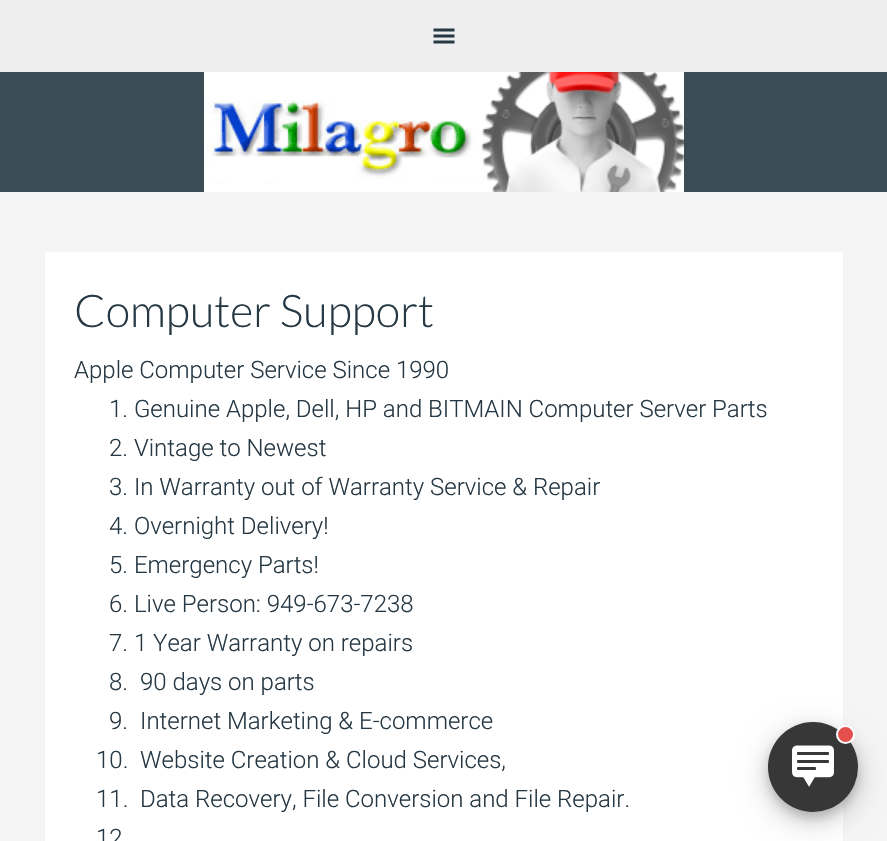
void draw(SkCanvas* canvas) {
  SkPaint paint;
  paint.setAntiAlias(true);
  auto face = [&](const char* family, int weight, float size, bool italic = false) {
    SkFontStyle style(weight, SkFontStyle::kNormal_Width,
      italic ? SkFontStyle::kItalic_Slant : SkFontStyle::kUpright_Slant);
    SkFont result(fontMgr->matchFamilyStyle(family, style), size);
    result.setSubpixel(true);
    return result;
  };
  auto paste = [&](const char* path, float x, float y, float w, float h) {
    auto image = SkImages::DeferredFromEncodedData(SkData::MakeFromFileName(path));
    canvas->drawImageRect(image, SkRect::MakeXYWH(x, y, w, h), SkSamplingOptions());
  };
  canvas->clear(0xffeeeeee);
  paste("img/1.png", 433, 28, 22, 16);
  paint.setColor(0xff3c4c57);
  canvas->drawRect(SkRect::MakeXYWH(0, 72, 887, 120), paint);
  paste("img/2.png", 204, 72, 480, 120);
  paint.setColor(0xfff5f5f5);
  canvas->drawRect(SkRect::MakeXYWH(0, 192, 887, 649), paint);
  paint.setColor(0xffffffff);
  canvas->drawRect(SkRect::MakeXYWH(45, 252, 798, 589), paint);
  paint.setColor(0x30000000);
  paint.setMaskFilter(SkMaskFilter::MakeBlur(kNormal_SkBlurStyle, 15));
  canvas->drawRoundRect(SkRect::MakeXYWH(768, 731, 90, 90), 45, 45, paint);
  paint.setMaskFilter(nullptr);
  paint.setColor(0x33000000);
  paint.setMaskFilter(SkMaskFilter::MakeBlur(kNormal_SkBlurStyle, 6));
  canvas->drawRoundRect(SkRect::MakeXYWH(768, 728, 90, 90), 45, 45, paint);
  paint.setMaskFilter(nullptr);
  paint.setColor(0xff373737);
  canvas->drawCircle(813, 767, 45, paint);
  paint.setColor(0xffe44f4b);
  canvas->drawCircle(845.5f, 734.5f, 8.5f, paint);
  paint.setStroke(true);
  paint.setStrokeWidth(2);
  paint.setColor(0xffffffff);
  canvas->drawCircle(845.5f, 734.5f, 8.5f, paint);
  paste("img/3.png", 792, 745, 42, 42);
  auto f0 = face("Lato", 300, 45);
  paint.setStroke(false);
  paint.setColor(0xff263844);
  canvas->drawString("Computer Support", 74, 327, f0, paint);
  auto f1 = face("Roboto", 300, 24);
  {
    const struct { const char* s; float x, y; } items[] = {
      {"Apple Computer Service Since 1990", 74, 378},
      {"1. Genuine Apple, Dell, HP and BITMAIN Computer Server Parts", 109, 417},
      {"2. Vintage to Newest", 109, 456},
      {"3. In Warranty out of Warranty Service & Repair", 109, 495},
      {"4. Overnight Delivery!", 109, 534},
      {"5. Emergency Parts!", 109, 573},
      {"6. Live Person: 949-673-7238", 109, 612},
      {"7. 1 Year Warranty on repairs", 109, 651},
      {"8.", 109, 690},
      {"90 days on parts", 140, 690},
      {"9.", 109, 729},
      {"Internet Marketing & E-commerce", 140, 729},
      {"10.", 96, 768},
      {"Website Creation & Cloud Services,", 140, 768},
      {"11.", 96, 807},
      {"Data Recovery, File Conversion and File Repair.", 140, 807},
      {"12", 96, 846},
    };
    for (auto [s, x, y] : items) {
      canvas->drawString(s, x, y, f1, paint);
    }
  }
}
